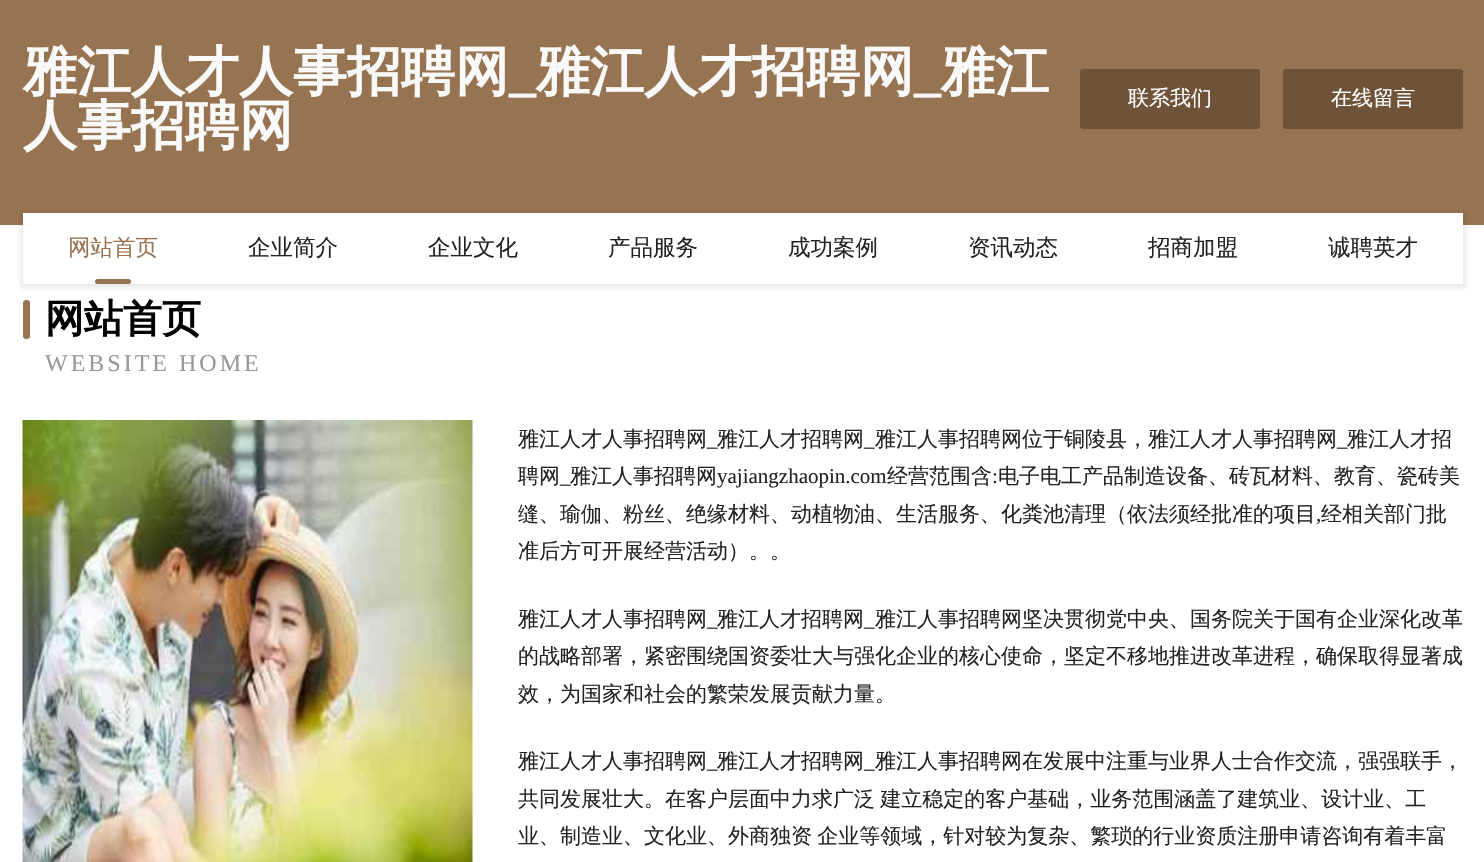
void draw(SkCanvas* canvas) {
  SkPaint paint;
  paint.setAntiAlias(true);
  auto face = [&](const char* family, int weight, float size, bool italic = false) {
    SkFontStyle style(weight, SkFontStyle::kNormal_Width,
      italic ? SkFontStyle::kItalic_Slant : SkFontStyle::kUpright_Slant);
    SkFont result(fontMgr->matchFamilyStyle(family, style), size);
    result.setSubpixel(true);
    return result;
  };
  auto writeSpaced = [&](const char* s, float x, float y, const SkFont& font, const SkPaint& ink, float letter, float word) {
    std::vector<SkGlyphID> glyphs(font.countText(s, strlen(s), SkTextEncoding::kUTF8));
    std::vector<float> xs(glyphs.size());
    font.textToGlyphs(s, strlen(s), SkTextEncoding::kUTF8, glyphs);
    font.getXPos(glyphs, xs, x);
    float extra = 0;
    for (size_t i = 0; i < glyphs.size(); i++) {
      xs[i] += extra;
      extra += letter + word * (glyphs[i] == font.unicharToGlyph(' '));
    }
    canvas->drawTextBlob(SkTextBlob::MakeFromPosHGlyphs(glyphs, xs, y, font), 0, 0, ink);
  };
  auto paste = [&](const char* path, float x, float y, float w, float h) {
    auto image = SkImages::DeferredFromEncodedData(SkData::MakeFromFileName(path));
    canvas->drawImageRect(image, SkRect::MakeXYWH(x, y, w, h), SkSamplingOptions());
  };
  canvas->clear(0xffffffff);
  paint.setColor(0xff977451);
  canvas->drawRect(SkRect::MakeXYWH(0, 0, 1484, 225), paint);
  paint.setColor(0xff6f5338);
  canvas->drawRoundRect(SkRect::MakeXYWH(1080, 69, 180, 60), 3, 3, paint);
  canvas->drawRoundRect(SkRect::MakeXYWH(1283, 69, 180, 60), 3, 3, paint);
  paint.setColor(0x14000000);
  paint.setMaskFilter(SkMaskFilter::MakeBlur(kNormal_SkBlurStyle, 2));
  canvas->drawRect(SkRect::MakeXYWH(20, 212, 1446, 76), paint);
  paint.setMaskFilter(nullptr);
  paint.setColor(0xffffffff);
  canvas->drawRect(SkRect::MakeXYWH(23, 213, 1440, 71), paint);
  paint.setColor(0xff977451);
  canvas->drawRoundRect(SkRect::MakeXYWH(95, 279, 36, 5), 2.5f, 2.5f, paint);
  canvas->drawRoundRect(SkRect::MakeXYWH(23, 300, 7, 39), 3, 3, paint);
  paste("img/1.png", 22, 420, 451, 442);
  auto f0 = face("WenQuanYi Zen Hei", 700, 54);
  paint.setColor(0xfff9f9f9);
  canvas->drawString("雅江人才人事招聘网", 23, 90, f0, paint);
  auto f1 = face("Liberation Serif", 700, 54);
  canvas->drawString("_", 509, 90, f1, paint);
  canvas->drawString("雅江人才招聘网", 536, 90, f0, paint);
  canvas->drawString("_", 914, 90, f1, paint);
  canvas->drawString("雅江", 941, 90, f0, paint);
  canvas->drawString("人事招聘网", 23, 144, f0, paint);
  auto f2 = face("WenQuanYi Zen Hei", 500, 21);
  paint.setColor(0xffffffff);
  canvas->drawString("联系我们", 1128, 105, f2, paint);
  canvas->drawString("在线留言", 1331, 105, f2, paint);
  auto f3 = face("WenQuanYi Zen Hei", 500, 22.5f);
  paint.setColor(0xff977451);
  canvas->drawString("网站首页", 68, 255, f3, paint);
  paint.setColor(0xff232323);
  {
    const struct { const char* s; float x, y; } items[] = {
      {"企业简介", 248, 255},
      {"企业文化", 428, 255},
      {"产品服务", 608, 255},
      {"成功案例", 788, 255},
      {"资讯动态", 968, 255},
      {"招商加盟", 1148, 255},
      {"诚聘英才", 1328, 255},
    };
    for (auto [s, x, y] : items) {
      canvas->drawString(s, x, y, f3, paint);
    }
  }
  auto f4 = face("WenQuanYi Zen Hei", 700, 39);
  paint.setColor(0xff000000);
  canvas->drawString("网站首页", 45, 332, f4, paint);
  auto f5 = face("Liberation Serif", 400, 24);
  paint.setColor(0xff989898);
  writeSpaced("WEBSITE HOME", 45, 371, f5, paint, 3, 0);
  paint.setColor(0xff232323);
  canvas->drawString("雅江人才人事招聘网", 518, 446, f2, paint);
  auto f6 = face("Liberation Serif", 400, 21);
  canvas->drawString("_", 707, 446, f6, paint);
  canvas->drawString("雅江人才招聘网", 717, 446, f2, paint);
  canvas->drawString("_", 864, 446, f6, paint);
  canvas->drawString("雅江人事招聘网位于铜陵县，雅江人才人事招聘网", 875, 446, f2, paint);
  canvas->drawString("_", 1337, 446, f6, paint);
  canvas->drawString("雅江人才招", 1347, 446, f2, paint);
  canvas->drawString("聘网", 518, 483, f2, paint);
  canvas->drawString("yajiangzhaopin.com", 717, 483, f6, paint);
  canvas->drawString("经营范围含", 887, 483, f2, paint);
  canvas->drawString(":", 992, 483, f6, paint);
  canvas->drawString("电子电工产品制造设备、砖瓦材料、教育、瓷砖美", 998, 483, f2, paint);
  canvas->drawString("_", 560, 483, f6, paint);
  canvas->drawString("雅江人事招聘网", 570, 483, f2, paint);
  canvas->drawString("缝、瑜伽、粉丝、绝缘材料、动植物油、生活服务、化粪池清理（依法须经批准的项目", 518, 521, f2, paint);
  canvas->drawString(",", 1316, 521, f6, paint);
  {
    const struct { const char* s; float x, y; } items[] = {
      {"经相关部门批", 1321, 521},
      {"准后方可开展经营活动）。。", 518, 558},
      {"雅江人才人事招聘网", 518, 626},
    };
    for (auto [s, x, y] : items) {
      canvas->drawString(s, x, y, f2, paint);
    }
  }
  canvas->drawString("_", 707, 626, f6, paint);
  canvas->drawString("雅江人才招聘网", 717, 626, f2, paint);
  canvas->drawString("_", 864, 626, f6, paint);
  {
    const struct { const char* s; float x, y; } items[] = {
      {"雅江人事招聘网坚决贯彻党中央、国务院关于国有企业深化改革", 875, 626},
      {"的战略部署，紧密围绕国资委壮大与强化企业的核心使命，坚定不移地推进改革进程，确保取得显著成", 518, 663},
      {"效，为国家和社会的繁荣发展贡献力量。", 518, 701},
      {"雅江人才人事招聘网", 518, 768},
    };
    for (auto [s, x, y] : items) {
      canvas->drawString(s, x, y, f2, paint);
    }
  }
  canvas->drawString("_", 707, 768, f6, paint);
  canvas->drawString("雅江人才招聘网", 717, 768, f2, paint);
  canvas->drawString("_", 864, 768, f6, paint);
  canvas->drawString("雅江人事招聘网在发展中注重与业界人士合作交流，强强联手，", 875, 768, f2, paint);
  writeSpaced("共同发展壮大。在客户层面中力求广泛 建立稳定的客户基础，业务范围涵盖了建筑业、设计业、工", 518, 806, f2, paint, 0, -1);
  writeSpaced("业、制造业、文化业、外商独资 企业等领域，针对较为复杂、繁琐的行业资质注册申请咨询有着丰富", 518, 843, f2, paint, 0, -1);
}
